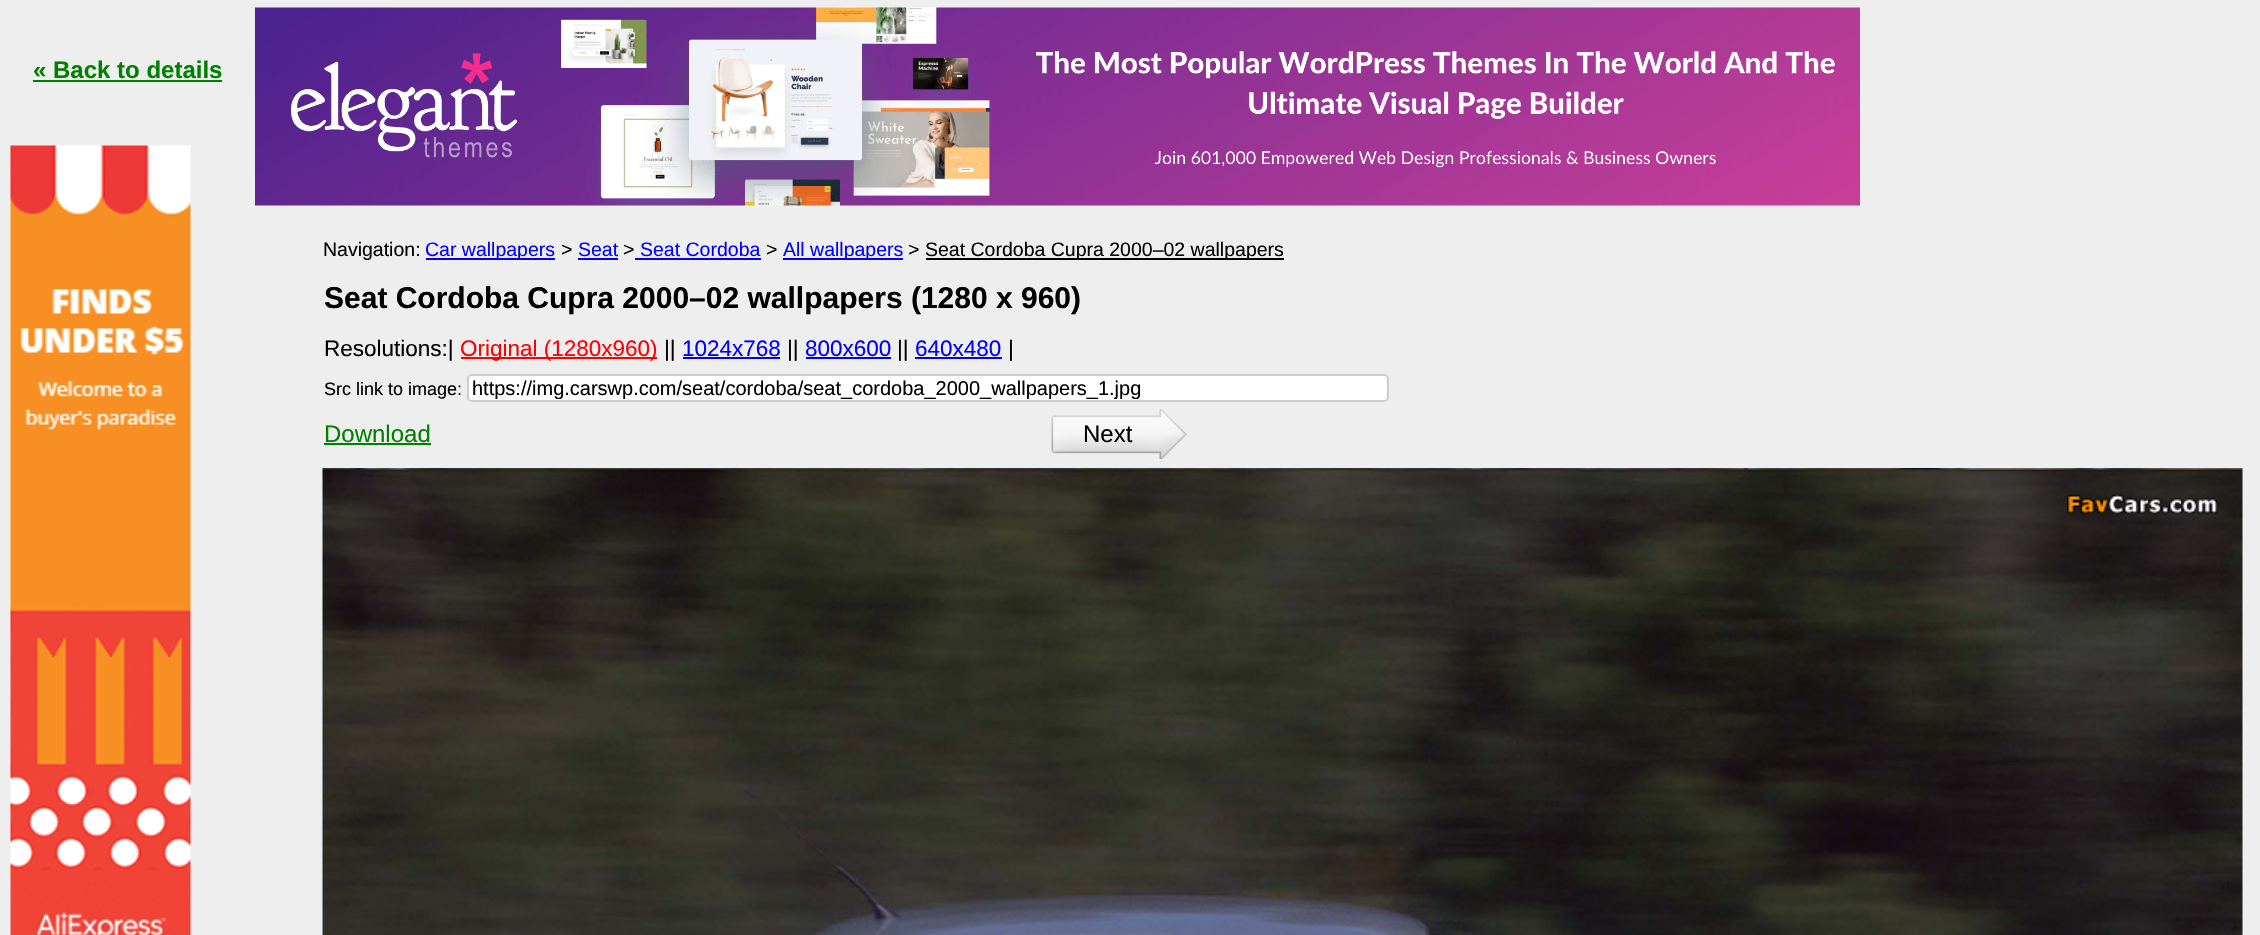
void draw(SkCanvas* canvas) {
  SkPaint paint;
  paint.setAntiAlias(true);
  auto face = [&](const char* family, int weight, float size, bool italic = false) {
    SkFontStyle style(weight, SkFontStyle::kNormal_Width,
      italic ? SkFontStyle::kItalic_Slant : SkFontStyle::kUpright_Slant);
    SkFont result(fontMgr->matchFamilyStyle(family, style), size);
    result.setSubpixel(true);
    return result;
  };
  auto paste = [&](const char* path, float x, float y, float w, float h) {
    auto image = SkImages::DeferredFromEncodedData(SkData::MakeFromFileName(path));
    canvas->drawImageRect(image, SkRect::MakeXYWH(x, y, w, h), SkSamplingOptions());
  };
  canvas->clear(0xffeeeeee);
  paste("img/1.png", 255, 7, 1605, 199);
  paint.setColor(0xff008000);
  canvas->drawRect(SkRect::MakeXYWH(33, 80, 189, 2), paint);
  paste("img/2.png", 10, 145, 181, 790);
  {
    const struct { float x, y, w, h; SkColor color; } items[] = {
      {426, 258, 129, 2, 0xff0000ff},
      {578, 258, 40, 2, 0xff0000ff},
      {635, 258, 126, 2, 0xff0000ff},
      {783, 258, 120, 2, 0xff0000ff},
      {926, 258, 358, 2, 0xff000000},
      {461, 357, 196, 2, 0xffff0000},
      {683, 357, 97, 2, 0xff0000ff},
      {806, 357, 85, 2, 0xff0000ff},
      {915, 357, 87, 2, 0xff0000ff},
    };
    for (auto [x, y, w, h, color] : items) {
      paint.setColor(color);
      canvas->drawRect(SkRect::MakeXYWH(x, y, w, h), paint);
    }
  }
  paint.setColor(0xffffffff);
  canvas->drawRoundRect(SkRect::MakeXYWH(468, 375, 920, 26), 4, 4, paint);
  paint.setStroke(true);
  paint.setStrokeWidth(2);
  paint.setColor(0xffcccccc);
  canvas->drawRoundRect(SkRect::MakeXYWH(468, 375, 920, 26), 4, 4, paint);
  paint.setStroke(false);
  paint.setColor(0xff008000);
  canvas->drawRect(SkRect::MakeXYWH(324, 443, 107, 2), paint);
  paste("img/3.png", 1051, 409, 136, 50);
  paste("img/4.png", 322, 468, 1921, 467);
  auto f0 = face("Liberation Sans", 700, 24);
  canvas->drawString("« Back to details", 33, 78, f0, paint);
  auto f1 = face("Liberation Sans", 400, 19.5f);
  paint.setColor(0xff000000);
  canvas->drawString("Navigation:", 323, 256, f1, paint);
  paint.setColor(0xff0000ff);
  canvas->drawString("Car wallpapers", 425, 256, f1, paint);
  paint.setColor(0xff000000);
  canvas->drawString(">", 561, 256, f1, paint);
  paint.setColor(0xff0000ff);
  canvas->drawString("Seat", 578, 256, f1, paint);
  paint.setColor(0xff000000);
  canvas->drawString(">", 623, 256, f1, paint);
  paint.setColor(0xff0000ff);
  canvas->drawString("Seat Cordoba", 640, 256, f1, paint);
  paint.setColor(0xff000000);
  canvas->drawString(">", 766, 256, f1, paint);
  paint.setColor(0xff0000ff);
  canvas->drawString("All wallpapers", 783, 256, f1, paint);
  paint.setColor(0xff000000);
  canvas->drawString(">", 908, 256, f1, paint);
  canvas->drawString("Seat Cordoba Cupra 2000–02 wallpapers", 925, 256, f1, paint);
  auto f2 = face("Liberation Sans", 700, 30);
  canvas->drawString("Seat Cordoba Cupra 2000–02 wallpapers (1280 x 960)", 324, 308, f2, paint);
  auto f3 = face("Liberation Sans", 400, 22.5f);
  canvas->drawString("Resolutions:|", 324, 356, f3, paint);
  paint.setColor(0xffff0000);
  canvas->drawString("Original (1280x960)", 460, 356, f3, paint);
  paint.setColor(0xff000000);
  canvas->drawString("||", 664, 356, f3, paint);
  paint.setColor(0xff0000ff);
  canvas->drawString("1024x768", 682, 356, f3, paint);
  paint.setColor(0xff000000);
  canvas->drawString("||", 787, 356, f3, paint);
  paint.setColor(0xff0000ff);
  canvas->drawString("800x600", 805, 356, f3, paint);
  paint.setColor(0xff000000);
  canvas->drawString("||", 897, 356, f3, paint);
  paint.setColor(0xff0000ff);
  canvas->drawString("640x480", 915, 356, f3, paint);
  paint.setColor(0xff000000);
  canvas->drawString("|", 1008, 356, f3, paint);
  auto f4 = face("Liberation Sans", 400, 18);
  canvas->drawString("Src link to image:", 324, 395, f4, paint);
  canvas->save();
  canvas->clipRect(SkRect::MakeXYWH(471, 377, 914, 22));
  auto f5 = face("Liberation Sans", 400, 20);
  canvas->drawString("https://img.carswp.com/seat/cordoba/seat_cordoba_2000_wallpapers_1.jpg", 472, 395, f5, paint);
  canvas->restore();
  auto f6 = face("Liberation Sans", 400, 24);
  paint.setColor(0xff008000);
  canvas->drawString("Download", 324, 442, f6, paint);
  paint.setColor(0xff000000);
  canvas->drawString("Next", 1083, 442, f6, paint);
}
